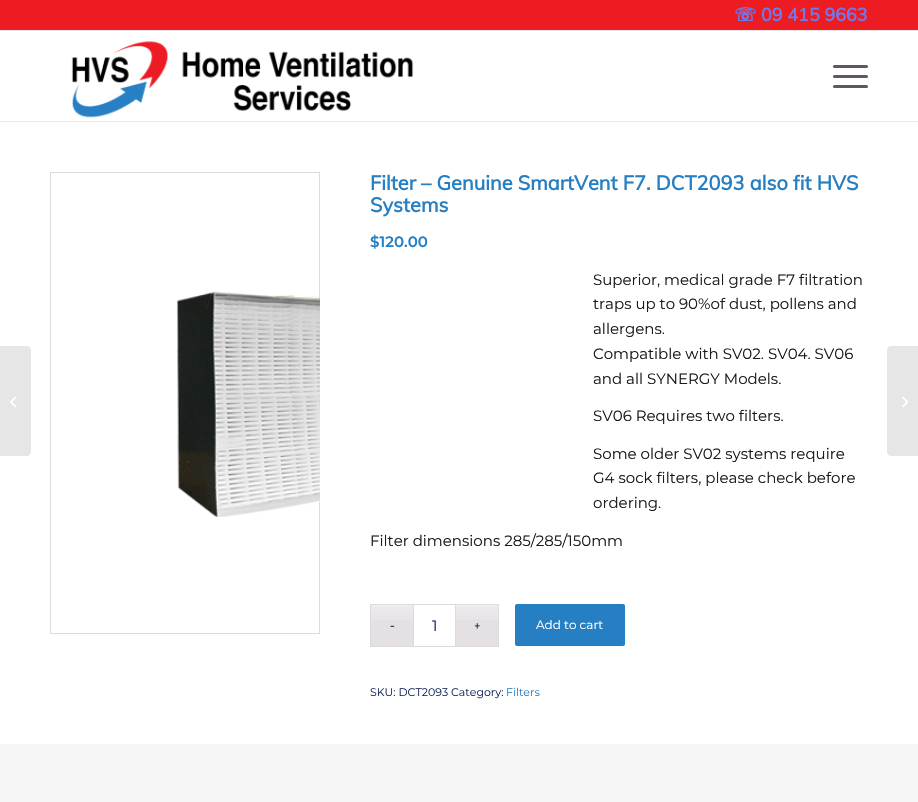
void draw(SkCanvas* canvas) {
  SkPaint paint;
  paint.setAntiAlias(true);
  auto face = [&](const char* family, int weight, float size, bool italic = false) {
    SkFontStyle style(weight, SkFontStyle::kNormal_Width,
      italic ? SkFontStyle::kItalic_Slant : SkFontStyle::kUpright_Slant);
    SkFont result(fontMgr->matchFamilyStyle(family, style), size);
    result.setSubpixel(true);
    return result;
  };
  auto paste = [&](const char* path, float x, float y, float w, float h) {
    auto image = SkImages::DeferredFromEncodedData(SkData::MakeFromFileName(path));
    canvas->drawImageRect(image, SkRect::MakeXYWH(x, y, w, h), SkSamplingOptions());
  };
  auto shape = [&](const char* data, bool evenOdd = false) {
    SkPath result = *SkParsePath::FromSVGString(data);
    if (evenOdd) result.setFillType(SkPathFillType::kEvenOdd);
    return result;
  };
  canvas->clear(0xffffffff);
  {
    const struct { float x, y, w, h; SkColor color; } items[] = {
      {0, 0, 918, 30, 0xffed1c23},
      {0, 30, 918, 1, 0xffe8e8e8},
      {0, 121, 918, 1, 0xffe8e8e8},
    };
    for (auto [x, y, w, h, color] : items) {
      paint.setColor(color);
      canvas->drawRect(SkRect::MakeXYWH(x, y, w, h), paint);
    }
  }
  paste("img/1.png", 71, 41, 343, 77);
  paint.setColor(0xff615661);
  canvas->drawRoundRect(SkRect::MakeXYWH(833, 75, 35, 3), 1.5f, 1.5f, paint);
  canvas->drawRoundRect(SkRect::MakeXYWH(833, 65, 35, 3), 1.5f, 1.5f, paint);
  canvas->drawRoundRect(SkRect::MakeXYWH(833, 85, 35, 3), 1.5f, 1.5f, paint);
  paint.setColor(0xffe6e6e6);
  canvas->drawPath(shape("M0 346H27C29 346 31 348 31 350V452C31 454 29 456 27 456H0Z"), paint);
  paste("img/2.png", 10, 396, 6, 12);
  paint.setStroke(true);
  paint.setStrokeWidth(1);
  paint.setColor(0xffdbdbdb);
  canvas->drawRect(SkRect::MakeXYWH(50.5f, 172.5f, 269, 461), paint);
  paste("img/3.png", 176, 291, 144, 226);
  paint.setStroke(false);
  paint.setColor(0xffe4e0e4);
  canvas->drawRect(SkRect::MakeXYWH(371, 605, 42, 41), paint);
  paste("img/4.png", 371, 605, 42, 15);
  canvas->drawRect(SkRect::MakeXYWH(456, 605, 42, 41), paint);
  paste("img/4.png", 456, 605, 42, 15);
  {
    const struct { float x, y, w, h; SkColor color; } items[] = {
      {370, 604, 43, 1, 0xffdbdbdb},
      {370, 646, 43, 1, 0xffdbdbdb},
      {370, 604, 1, 43, 0xffdbdbdb},
    };
    for (auto [x, y, w, h, color] : items) {
      paint.setColor(color);
      canvas->drawRect(SkRect::MakeXYWH(x, y, w, h), paint);
    }
  }
  paint.setStroke(true);
  canvas->drawRect(SkRect::MakeXYWH(413.5f, 604.5f, 42, 42), paint);
  paint.setStroke(false);
  {
    const struct { float x, y, w, h; SkColor color; } items[] = {
      {456, 604, 43, 1, 0xffdbdbdb},
      {498, 604, 1, 43, 0xffdbdbdb},
      {456, 646, 43, 1, 0xffdbdbdb},
    };
    for (auto [x, y, w, h, color] : items) {
      paint.setColor(color);
      canvas->drawRect(SkRect::MakeXYWH(x, y, w, h), paint);
    }
  }
  paint.setColor(0xff267fc3);
  canvas->drawRoundRect(SkRect::MakeXYWH(515, 604, 110, 42), 2, 2, paint);
  paint.setColor(0xfff5f5f5);
  canvas->drawRect(SkRect::MakeXYWH(0, 744, 918, 58), paint);
  paint.setColor(0xffe6e6e6);
  canvas->drawPath(shape("M891 346H918V456H891C889 456 887 454 887 452V350C887 348 889 346 891 346Z"), paint);
  paste("img/5.png", 902, 396, 6, 12);
  auto f0 = face("DejaVu Sans", 700, 18);
  paint.setColor(0xff717aed);
  canvas->drawString("☏", 734, 21, f0, paint);
  auto f1 = face("Muli", 700, 18);
  canvas->drawString("09 415 9663", 761, 21, f1, paint);
  auto f2 = face("Muli", 700, 20);
  paint.setColor(0xff267fc3);
  canvas->drawString("Filter – Genuine SmartVent F7. DCT2093 also fit HVS", 370, 190, f2, paint);
  canvas->drawString("Systems", 370, 212, f2, paint);
  auto f3 = face("Montserrat", 600, 15);
  canvas->drawString("$120.00", 370, 247, f3, paint);
  auto f4 = face("Montserrat", 100, 15);
  paint.setColor(0xff1a1a1a);
  {
    const struct { const char* s; float x, y; } items[] = {
      {"Superior, medical grade F7 filtration", 593, 285},
      {"traps up to 90%of dust, pollens and", 593, 309},
      {"allergens.", 593, 334},
      {"Compatible with SV02. SV04. SV06", 593, 359},
      {"and all SYNERGY Models.", 593, 384},
      {"SV06 Requires two filters.", 593, 421},
      {"Some older SV02 systems require", 593, 459},
      {"G4 sock filters, please check before", 593, 483},
      {"ordering.", 593, 508},
      {"Filter dimensions 285/285/150mm", 370, 546},
    };
    for (auto [s, x, y] : items) {
      canvas->drawString(s, x, y, f4, paint);
    }
  }
  auto f5 = face("Play", 400, 13);
  paint.setColor(0xff122759);
  canvas->drawString("-", 390, 630, f5, paint);
  canvas->drawString("1", 432, 631, f4, paint);
  canvas->drawString("+", 474, 630, f5, paint);
  auto f6 = face("Montserrat", 100, 12);
  paint.setColor(0xffffffff);
  canvas->drawString("Add to cart", 536, 629, f6, paint);
  auto f7 = face("Montserrat", 100, 11);
  paint.setColor(0xff122759);
  canvas->drawString("SKU: DCT2093 Category:", 370, 696, f7, paint);
  paint.setColor(0xff267fc3);
  canvas->drawString("Filters", 506, 696, f7, paint);
}
